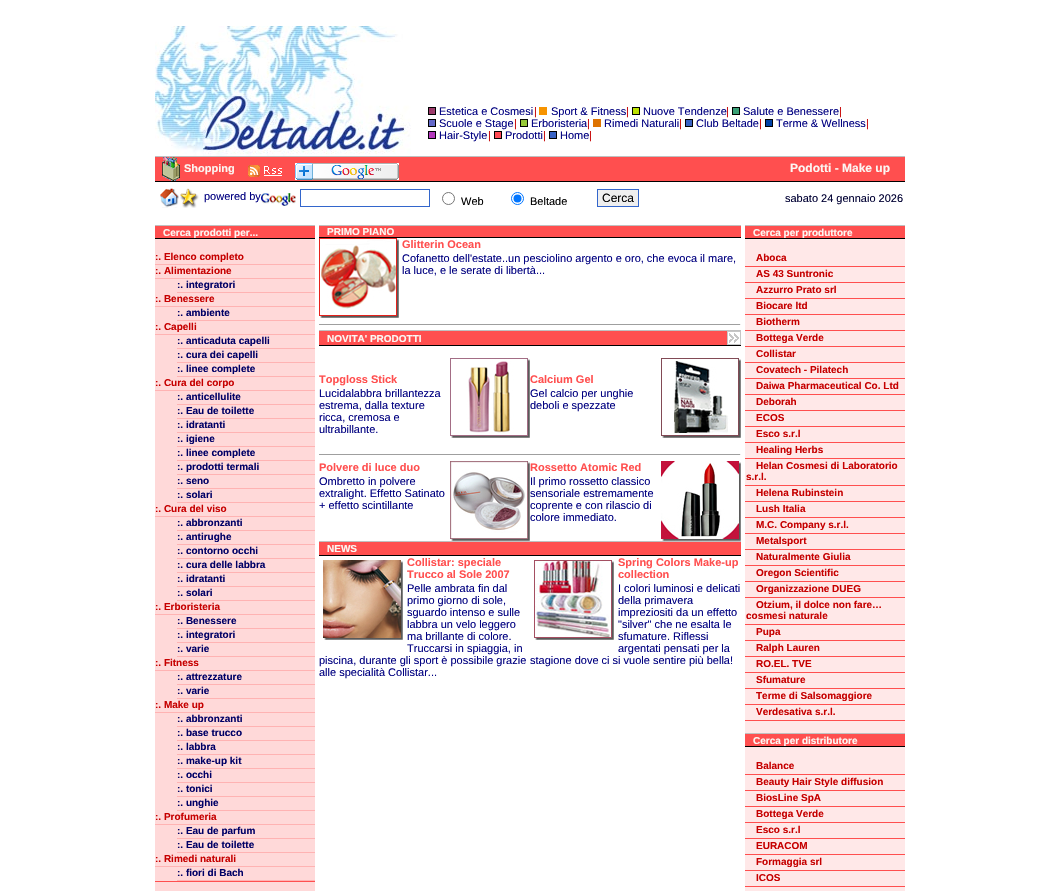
void draw(SkCanvas* canvas) {
  SkPaint paint;
  paint.setAntiAlias(true);
  auto face = [&](const char* family, int weight, float size, bool italic = false) {
    SkFontStyle style(weight, SkFontStyle::kNormal_Width,
      italic ? SkFontStyle::kItalic_Slant : SkFontStyle::kUpright_Slant);
    SkFont result(fontMgr->matchFamilyStyle(family, style), size);
    result.setSubpixel(true);
    return result;
  };
  auto paste = [&](const char* path, float x, float y, float w, float h) {
    auto image = SkImages::DeferredFromEncodedData(SkData::MakeFromFileName(path));
    canvas->drawImageRect(image, SkRect::MakeXYWH(x, y, w, h), SkSamplingOptions());
  };
  canvas->clear(0xffffffff);
  paste("img/1.png", 155, 26, 256, 130);
  paste("img/2.png", 428, 107, 8, 8);
  paint.setColor(0xfff79400);
  canvas->drawRect(SkRect::MakeXYWH(539, 107, 8, 8), paint);
  paste("img/3.png", 632, 107, 8, 8);
  paste("img/4.png", 732, 107, 8, 8);
  paste("img/5.png", 428, 119, 8, 8);
  paste("img/6.png", 520, 119, 8, 8);
  paint.setColor(0xffde7300);
  canvas->drawRect(SkRect::MakeXYWH(593, 119, 8, 8), paint);
  paste("img/7.png", 685, 119, 8, 8);
  paste("img/8.png", 765, 119, 8, 8);
  paste("img/9.png", 428, 131, 8, 8);
  paste("img/10.png", 494, 131, 8, 8);
  paste("img/7.png", 549, 131, 8, 8);
  {
    const struct { float x, y, w, h; SkColor color; } items[] = {
      {155, 156, 3, 26, 0xffff4f4f},
      {155, 156, 750, 1, 0xffc0c0c0},
      {155, 181, 750, 1, 0xff000000},
      {158, 157, 747, 24, 0xffff4f4f},
    };
    for (auto [x, y, w, h, color] : items) {
      paint.setColor(color);
      canvas->drawRect(SkRect::MakeXYWH(x, y, w, h), paint);
    }
  }
  paste("img/11.png", 162, 157, 18, 24);
  paste("img/12.png", 248, 165, 34, 12);
  paste("img/13.png", 295, 163, 104, 17);
  paste("img/14.png", 160, 188, 19, 20);
  paste("img/15.png", 180, 188, 19, 20);
  paint.setStroke(true);
  paint.setStrokeWidth(1);
  paint.setColor(0xff3366cc);
  canvas->drawRect(SkRect::MakeXYWH(300.5f, 189.5f, 129, 17), paint);
  paint.setColor(0xff767676);
  canvas->drawCircle(448.5f, 198.5f, 6, paint);
  paint.setColor(0xff0075ff);
  canvas->drawCircle(517.5f, 198.5f, 6, paint);
  paint.setStroke(false);
  canvas->drawCircle(517.5f, 198.5f, 4, paint);
  paint.setColor(0xffefefef);
  canvas->drawRect(SkRect::MakeXYWH(597.5f, 189.5f, 41, 17), paint);
  paint.setStroke(true);
  paint.setColor(0xff3366cc);
  canvas->drawRect(SkRect::MakeXYWH(597.5f, 189.5f, 41, 17), paint);
  paint.setStroke(false);
  {
    const struct { float x, y, w, h; SkColor color; } items[] = {
      {155, 239, 160, 652, 0xffffd9d9},
      {155, 226, 160, 12, 0xffff4f4f},
      {155, 225, 160, 1, 0xffc0c0c0},
      {155, 238, 160, 1, 0xff000000},
      {155, 881, 160, 1, 0xffff4f4f},
      {155, 264, 160, 1, 0xffffb3b3},
      {155, 278, 160, 1, 0xffffb3b3},
      {177, 292, 138, 1, 0xffffb3b3},
      {155, 306, 160, 1, 0xffffb3b3},
      {177, 320, 138, 1, 0xffffb3b3},
      {155, 334, 160, 1, 0xffffb3b3},
      {177, 348, 138, 1, 0xffffb3b3},
      {177, 362, 138, 1, 0xffffb3b3},
      {177, 376, 138, 1, 0xffffb3b3},
      {155, 390, 160, 1, 0xffffb3b3},
      {177, 404, 138, 1, 0xffffb3b3},
      {177, 418, 138, 1, 0xffffb3b3},
      {177, 432, 138, 1, 0xffffb3b3},
      {177, 446, 138, 1, 0xffffb3b3},
      {177, 460, 138, 1, 0xffffb3b3},
      {177, 474, 138, 1, 0xffffb3b3},
      {177, 488, 138, 1, 0xffffb3b3},
      {177, 502, 138, 1, 0xffffb3b3},
      {155, 516, 160, 1, 0xffffb3b3},
      {177, 530, 138, 1, 0xffffb3b3},
      {177, 544, 138, 1, 0xffffb3b3},
      {177, 558, 138, 1, 0xffffb3b3},
      {177, 572, 138, 1, 0xffffb3b3},
      {177, 586, 138, 1, 0xffffb3b3},
      {177, 600, 138, 1, 0xffffb3b3},
      {155, 614, 160, 1, 0xffffb3b3},
      {177, 628, 138, 1, 0xffffb3b3},
      {177, 642, 138, 1, 0xffffb3b3},
      {177, 656, 138, 1, 0xffffb3b3},
      {155, 670, 160, 1, 0xffffb3b3},
      {177, 684, 138, 1, 0xffffb3b3},
      {177, 698, 138, 1, 0xffffb3b3},
      {155, 712, 160, 1, 0xffffb3b3},
      {177, 726, 138, 1, 0xffffb3b3},
      {177, 740, 138, 1, 0xffffb3b3},
      {177, 754, 138, 1, 0xffffb3b3},
      {177, 768, 138, 1, 0xffffb3b3},
      {177, 782, 138, 1, 0xffffb3b3},
      {177, 796, 138, 1, 0xffffb3b3},
      {177, 810, 138, 1, 0xffffb3b3},
      {155, 824, 160, 1, 0xffffb3b3},
      {177, 838, 138, 1, 0xffffb3b3},
      {177, 852, 138, 1, 0xffffb3b3},
      {155, 866, 160, 1, 0xffffb3b3},
      {177, 880, 138, 1, 0xffffb3b3},
      {319, 226, 422, 11, 0xffff4f4f},
      {319, 225, 422, 1, 0xffc0c0c0},
      {319, 237, 422, 1, 0xff000000},
    };
    for (auto [x, y, w, h, color] : items) {
      paint.setColor(color);
      canvas->drawRect(SkRect::MakeXYWH(x, y, w, h), paint);
    }
  }
  paste("img/17.png", 319, 238, 80, 80);
  {
    const struct { float x, y, w, h; SkColor color; } items[] = {
      {319, 324, 422, 1, 0xff9f9f9f},
      {740, 324, 1, 1, 0xffeeeeee},
      {319, 331, 408, 14, 0xffff4f4f},
      {319, 330, 422, 1, 0xffc0c0c0},
      {319, 345, 422, 1, 0xff000000},
    };
    for (auto [x, y, w, h, color] : items) {
      paint.setColor(color);
      canvas->drawRect(SkRect::MakeXYWH(x, y, w, h), paint);
    }
  }
  paste("img/18.png", 727, 331, 14, 14);
  paste("img/19.png", 450, 358, 80, 80);
  paste("img/20.png", 661, 358, 80, 80);
  paint.setColor(0xff9f9f9f);
  canvas->drawRect(SkRect::MakeXYWH(319, 454, 422, 1), paint);
  paint.setColor(0xffeeeeee);
  canvas->drawRect(SkRect::MakeXYWH(740, 454, 1, 1), paint);
  paste("img/21.png", 450, 461, 80, 80);
  paste("img/22.png", 661, 461, 80, 80);
  {
    const struct { float x, y, w, h; SkColor color; } items[] = {
      {319, 542, 422, 13, 0xffff4f4f},
      {319, 541, 422, 1, 0xffc0c0c0},
      {319, 555, 422, 1, 0xff000000},
    };
    for (auto [x, y, w, h, color] : items) {
      paint.setColor(color);
      canvas->drawRect(SkRect::MakeXYWH(x, y, w, h), paint);
    }
  }
  paste("img/23.png", 323, 560, 80, 80);
  paste("img/24.png", 534, 560, 80, 80);
  {
    const struct { float x, y, w, h; SkColor color; } items[] = {
      {745, 239, 160, 652, 0xffffe8e8},
      {745, 226, 160, 12, 0xffff4f4f},
      {745, 225, 160, 1, 0xffc0c0c0},
      {745, 238, 160, 1, 0xff000000},
      {745, 266, 160, 1, 0xffff4f4f},
      {745, 282, 160, 1, 0xffff4f4f},
      {745, 298, 160, 1, 0xffff4f4f},
      {745, 314, 160, 1, 0xffff4f4f},
      {745, 330, 160, 1, 0xffff4f4f},
      {745, 346, 160, 1, 0xffff4f4f},
      {745, 362, 160, 1, 0xffff4f4f},
      {745, 378, 160, 1, 0xffff4f4f},
      {745, 394, 160, 1, 0xffff4f4f},
      {745, 410, 160, 1, 0xffff4f4f},
      {745, 426, 160, 1, 0xffff4f4f},
      {745, 442, 160, 1, 0xffff4f4f},
      {745, 458, 160, 1, 0xffff4f4f},
      {745, 485, 160, 1, 0xffff4f4f},
      {745, 501, 160, 1, 0xffff4f4f},
      {745, 517, 160, 1, 0xffff4f4f},
      {745, 533, 160, 1, 0xffff4f4f},
      {745, 549, 160, 1, 0xffff4f4f},
      {745, 565, 160, 1, 0xffff4f4f},
      {745, 581, 160, 1, 0xffff4f4f},
      {745, 597, 160, 1, 0xffff4f4f},
      {745, 624, 160, 1, 0xffff4f4f},
      {745, 640, 160, 1, 0xffff4f4f},
      {745, 656, 160, 1, 0xffff4f4f},
      {745, 672, 160, 1, 0xffff4f4f},
      {745, 688, 160, 1, 0xffff4f4f},
      {745, 704, 160, 1, 0xffff4f4f},
      {745, 720, 160, 1, 0xffff4f4f},
      {745, 734, 160, 12, 0xffff4f4f},
      {745, 733, 160, 1, 0xffc0c0c0},
      {745, 746, 160, 1, 0xff000000},
      {745, 774, 160, 1, 0xffff4f4f},
      {745, 790, 160, 1, 0xffff4f4f},
      {745, 806, 160, 1, 0xffff4f4f},
      {745, 822, 160, 1, 0xffff4f4f},
      {745, 838, 160, 1, 0xffff4f4f},
      {745, 854, 160, 1, 0xffff4f4f},
      {745, 870, 160, 1, 0xffff4f4f},
      {745, 886, 160, 1, 0xffff4f4f},
    };
    for (auto [x, y, w, h, color] : items) {
      paint.setColor(color);
      canvas->drawRect(SkRect::MakeXYWH(x, y, w, h), paint);
    }
  }
  auto f0 = face("Liberation Sans", 400, 11);
  paint.setColor(0xff000080);
  canvas->drawString("Estetica e Cosmesi", 439, 115, f0, paint);
  paint.setColor(0xffc60000);
  canvas->drawString("|", 534, 115, f0, paint);
  paint.setColor(0xff000080);
  canvas->drawString("Sport & Fitness", 551, 115, f0, paint);
  paint.setColor(0xffc60000);
  canvas->drawString("|", 626, 115, f0, paint);
  paint.setColor(0xff000080);
  canvas->drawString("Nuove Tendenze", 643, 115, f0, paint);
  paint.setColor(0xffc60000);
  canvas->drawString("|", 726, 115, f0, paint);
  paint.setColor(0xff000080);
  canvas->drawString("Salute e Benessere", 743, 115, f0, paint);
  paint.setColor(0xffc60000);
  canvas->drawString("|", 839, 115, f0, paint);
  paint.setColor(0xff000080);
  canvas->drawString("Scuole e Stage", 439, 127, f0, paint);
  paint.setColor(0xffc60000);
  canvas->drawString("|", 514, 127, f0, paint);
  paint.setColor(0xff000080);
  canvas->drawString("Erboristeria", 531, 127, f0, paint);
  paint.setColor(0xffc60000);
  canvas->drawString("|", 587, 127, f0, paint);
  paint.setColor(0xff000080);
  canvas->drawString("Rimedi Naturali", 604, 127, f0, paint);
  paint.setColor(0xffc60000);
  canvas->drawString("|", 679, 127, f0, paint);
  paint.setColor(0xff000080);
  canvas->drawString("Club Beltade", 696, 127, f0, paint);
  paint.setColor(0xffc60000);
  canvas->drawString("|", 759, 127, f0, paint);
  paint.setColor(0xff000080);
  canvas->drawString("Terme & Wellness", 776, 127, f0, paint);
  paint.setColor(0xffc60000);
  canvas->drawString("|", 866, 127, f0, paint);
  paint.setColor(0xff000080);
  canvas->drawString("Hair-Style", 439, 139, f0, paint);
  paint.setColor(0xffc60000);
  canvas->drawString("|", 488, 139, f0, paint);
  paint.setColor(0xff000080);
  canvas->drawString("Prodotti", 505, 139, f0, paint);
  paint.setColor(0xffc60000);
  canvas->drawString("|", 543, 139, f0, paint);
  paint.setColor(0xff000080);
  canvas->drawString("Home", 560, 139, f0, paint);
  paint.setColor(0xffc60000);
  canvas->drawString("|", 589, 139, f0, paint);
  auto f1 = face("Liberation Sans", 700, 11);
  paint.setColor(0xfffcf7f3);
  canvas->drawString("Shopping", 184, 172, f1, paint);
  auto f2 = face("Liberation Sans", 700, 12);
  canvas->drawString("Podotti - Make up", 790, 172, f2, paint);
  paint.setColor(0xff000080);
  canvas->drawString("powered by", 204, 200, f0, paint);
  paste("img/16.png", 261, 193, 35, 13);
  paint.setColor(0xff000000);
  canvas->drawString("Web", 461, 205, f0, paint);
  canvas->drawString("Beltade", 530, 205, f0, paint);
  auto f3 = face("Liberation Sans", 400, 12);
  canvas->drawString("Cerca", 602, 202, f3, paint);
  paint.setColor(0xff000033);
  canvas->drawString("sabato 24 gennaio 2026", 785, 202, f0, paint);
  auto f4 = face("Liberation Sans", 700, 10);
  paint.setColor(0xfffcf7f3);
  canvas->drawString("Cerca prodotti per...", 163, 236, f4, paint);
  paint.setColor(0xffc60000);
  canvas->drawString(":. Elenco completo", 155, 260, f4, paint);
  canvas->drawString(":. Alimentazione", 155, 274, f4, paint);
  paint.setColor(0xff000066);
  canvas->drawString(":. integratori", 177, 288, f4, paint);
  paint.setColor(0xffc60000);
  canvas->drawString(":. Benessere", 155, 302, f4, paint);
  paint.setColor(0xff000066);
  canvas->drawString(":. ambiente", 177, 316, f4, paint);
  paint.setColor(0xffc60000);
  canvas->drawString(":. Capelli", 155, 330, f4, paint);
  paint.setColor(0xff000066);
  {
    const struct { const char* s; float x, y; } items[] = {
      {":. anticaduta capelli", 177, 344},
      {":. cura dei capelli", 177, 358},
      {":. linee complete", 177, 372},
    };
    for (auto [s, x, y] : items) {
      canvas->drawString(s, x, y, f4, paint);
    }
  }
  paint.setColor(0xffc60000);
  canvas->drawString(":. Cura del corpo", 155, 386, f4, paint);
  paint.setColor(0xff000066);
  {
    const struct { const char* s; float x, y; } items[] = {
      {":. anticellulite", 177, 400},
      {":. Eau de toilette", 177, 414},
      {":. idratanti", 177, 428},
      {":. igiene", 177, 442},
      {":. linee complete", 177, 456},
      {":. prodotti termali", 177, 470},
      {":. seno", 177, 484},
      {":. solari", 177, 498},
    };
    for (auto [s, x, y] : items) {
      canvas->drawString(s, x, y, f4, paint);
    }
  }
  paint.setColor(0xffc60000);
  canvas->drawString(":. Cura del viso", 155, 512, f4, paint);
  paint.setColor(0xff000066);
  {
    const struct { const char* s; float x, y; } items[] = {
      {":. abbronzanti", 177, 526},
      {":. antirughe", 177, 540},
      {":. contorno occhi", 177, 554},
      {":. cura delle labbra", 177, 568},
      {":. idratanti", 177, 582},
      {":. solari", 177, 596},
    };
    for (auto [s, x, y] : items) {
      canvas->drawString(s, x, y, f4, paint);
    }
  }
  paint.setColor(0xffc60000);
  canvas->drawString(":. Erboristeria", 155, 610, f4, paint);
  paint.setColor(0xff000066);
  {
    const struct { const char* s; float x, y; } items[] = {
      {":. Benessere", 177, 624},
      {":. integratori", 177, 638},
      {":. varie", 177, 652},
    };
    for (auto [s, x, y] : items) {
      canvas->drawString(s, x, y, f4, paint);
    }
  }
  paint.setColor(0xffc60000);
  canvas->drawString(":. Fitness", 155, 666, f4, paint);
  paint.setColor(0xff000066);
  canvas->drawString(":. attrezzature", 177, 680, f4, paint);
  canvas->drawString(":. varie", 177, 694, f4, paint);
  paint.setColor(0xffc60000);
  canvas->drawString(":. Make up", 155, 708, f4, paint);
  paint.setColor(0xff000066);
  {
    const struct { const char* s; float x, y; } items[] = {
      {":. abbronzanti", 177, 722},
      {":. base trucco", 177, 736},
      {":. labbra", 177, 750},
      {":. make-up kit", 177, 764},
      {":. occhi", 177, 778},
      {":. tonici", 177, 792},
      {":. unghie", 177, 806},
    };
    for (auto [s, x, y] : items) {
      canvas->drawString(s, x, y, f4, paint);
    }
  }
  paint.setColor(0xffc60000);
  canvas->drawString(":. Profumeria", 155, 820, f4, paint);
  paint.setColor(0xff000066);
  canvas->drawString(":. Eau de parfum", 177, 834, f4, paint);
  canvas->drawString(":. Eau de toilette", 177, 848, f4, paint);
  paint.setColor(0xffc60000);
  canvas->drawString(":. Rimedi naturali", 155, 862, f4, paint);
  paint.setColor(0xff000066);
  canvas->drawString(":. fiori di Bach", 177, 876, f4, paint);
  paint.setColor(0xfffcf7f3);
  canvas->drawString("PRIMO PIANO", 327, 235, f4, paint);
  paint.setColor(0xffff4f4f);
  canvas->drawString("Glitterin Ocean", 402, 248, f1, paint);
  paint.setColor(0xff000080);
  canvas->drawString("Cofanetto dell'estate..un pesciolino argento e oro, che evoca il mare,", 402, 262, f0, paint);
  canvas->drawString("la luce, e le serate di libertà...", 402, 274, f0, paint);
  paint.setColor(0xfffcf7f3);
  canvas->drawString("NOVITA' PRODOTTI", 327, 342, f4, paint);
  paint.setColor(0xffff4f4f);
  canvas->drawString("Topgloss Stick", 319, 383, f1, paint);
  paint.setColor(0xff000080);
  {
    const struct { const char* s; float x, y; } items[] = {
      {"Lucidalabbra brillantezza", 319, 397},
      {"estrema, dalla texture", 319, 409},
      {"ricca, cremosa e", 319, 421},
      {"ultrabillante.", 319, 433},
    };
    for (auto [s, x, y] : items) {
      canvas->drawString(s, x, y, f0, paint);
    }
  }
  paint.setColor(0xffff4f4f);
  canvas->drawString("Calcium Gel", 530, 383, f1, paint);
  paint.setColor(0xff000080);
  canvas->drawString("Gel calcio per unghie", 530, 397, f0, paint);
  canvas->drawString("deboli e spezzate", 530, 409, f0, paint);
  paint.setColor(0xffff4f4f);
  canvas->drawString("Polvere di luce duo", 319, 471, f1, paint);
  paint.setColor(0xff000080);
  {
    const struct { const char* s; float x, y; } items[] = {
      {"Ombretto in polvere", 319, 485},
      {"extralight. Effetto Satinato", 319, 497},
      {"+ effetto scintillante", 319, 509},
    };
    for (auto [s, x, y] : items) {
      canvas->drawString(s, x, y, f0, paint);
    }
  }
  paint.setColor(0xffff4f4f);
  canvas->drawString("Rossetto Atomic Red", 530, 471, f1, paint);
  paint.setColor(0xff000080);
  {
    const struct { const char* s; float x, y; } items[] = {
      {"Il primo rossetto classico", 530, 485},
      {"sensoriale estremamente", 530, 497},
      {"coprente e con rilascio di", 530, 509},
      {"colore immediato.", 530, 521},
    };
    for (auto [s, x, y] : items) {
      canvas->drawString(s, x, y, f0, paint);
    }
  }
  paint.setColor(0xfffcf7f3);
  canvas->drawString("NEWS", 327, 552, f4, paint);
  paint.setColor(0xffff4f4f);
  canvas->drawString("Collistar: speciale", 407, 566, f1, paint);
  canvas->drawString("Trucco al Sole 2007", 407, 578, f1, paint);
  paint.setColor(0xff000080);
  {
    const struct { const char* s; float x, y; } items[] = {
      {"Pelle ambrata fin dal", 407, 592},
      {"primo giorno di sole,", 407, 604},
      {"sguardo intenso e sulle", 407, 616},
      {"labbra un velo leggero", 407, 628},
      {"ma brillante di colore.", 407, 640},
      {"Truccarsi in spiaggia, in", 407, 652},
      {"piscina, durante gli sport è possibile grazie", 319, 664},
      {"alle specialità Collistar...", 319, 676},
    };
    for (auto [s, x, y] : items) {
      canvas->drawString(s, x, y, f0, paint);
    }
  }
  paint.setColor(0xffff4f4f);
  canvas->drawString("Spring Colors Make-up", 618, 566, f1, paint);
  canvas->drawString("collection", 618, 578, f1, paint);
  paint.setColor(0xff000080);
  {
    const struct { const char* s; float x, y; } items[] = {
      {"I colori luminosi e delicati", 618, 592},
      {"della primavera", 618, 604},
      {"impreziositi da un effetto", 618, 616},
      {"\"silver\" che ne esalta le", 618, 628},
      {"sfumature. Riflessi", 618, 640},
      {"argentati pensati per la", 618, 652},
      {"stagione dove ci si vuole sentire più bella!", 530, 664},
    };
    for (auto [s, x, y] : items) {
      canvas->drawString(s, x, y, f0, paint);
    }
  }
  paint.setColor(0xfffcf7f3);
  canvas->drawString("Cerca per produttore", 753, 236, f4, paint);
  paint.setColor(0xffc60000);
  {
    const struct { const char* s; float x, y; } items[] = {
      {"Aboca", 756, 261},
      {"AS 43 Suntronic", 756, 277},
      {"Azzurro Prato srl", 756, 293},
      {"Biocare ltd", 756, 309},
      {"Biotherm", 756, 325},
      {"Bottega Verde", 756, 341},
      {"Collistar", 756, 357},
      {"Covatech - Pilatech", 756, 373},
      {"Daiwa Pharmaceutical Co. Ltd", 756, 389},
      {"Deborah", 756, 405},
      {"ECOS", 756, 421},
      {"Esco s.r.l", 756, 437},
      {"Healing Herbs", 756, 453},
      {"Helan Cosmesi di Laboratorio", 756, 469},
      {"s.r.l.", 746, 480},
      {"Helena Rubinstein", 756, 496},
      {"Lush Italia", 756, 512},
      {"M.C. Company s.r.l.", 756, 528},
      {"Metalsport", 756, 544},
      {"Naturalmente Giulia", 756, 560},
      {"Oregon Scientific", 756, 576},
      {"Organizzazione DUEG", 756, 592},
      {"Otzium, il dolce non fare…", 756, 608},
      {"cosmesi naturale", 746, 619},
      {"Pupa", 756, 635},
      {"Ralph Lauren", 756, 651},
      {"RO.EL. TVE", 756, 667},
      {"Sfumature", 756, 683},
      {"Terme di Salsomaggiore", 756, 699},
      {"Verdesativa s.r.l.", 756, 715},
    };
    for (auto [s, x, y] : items) {
      canvas->drawString(s, x, y, f4, paint);
    }
  }
  paint.setColor(0xfffcf7f3);
  canvas->drawString("Cerca per distributore", 753, 744, f4, paint);
  paint.setColor(0xffc60000);
  {
    const struct { const char* s; float x, y; } items[] = {
      {"Balance", 756, 769},
      {"Beauty Hair Style diffusion", 756, 785},
      {"BiosLine SpA", 756, 801},
      {"Bottega Verde", 756, 817},
      {"Esco s.r.l", 756, 833},
      {"EURACOM", 756, 849},
      {"Formaggia srl", 756, 865},
      {"ICOS", 756, 881},
    };
    for (auto [s, x, y] : items) {
      canvas->drawString(s, x, y, f4, paint);
    }
  }
}
